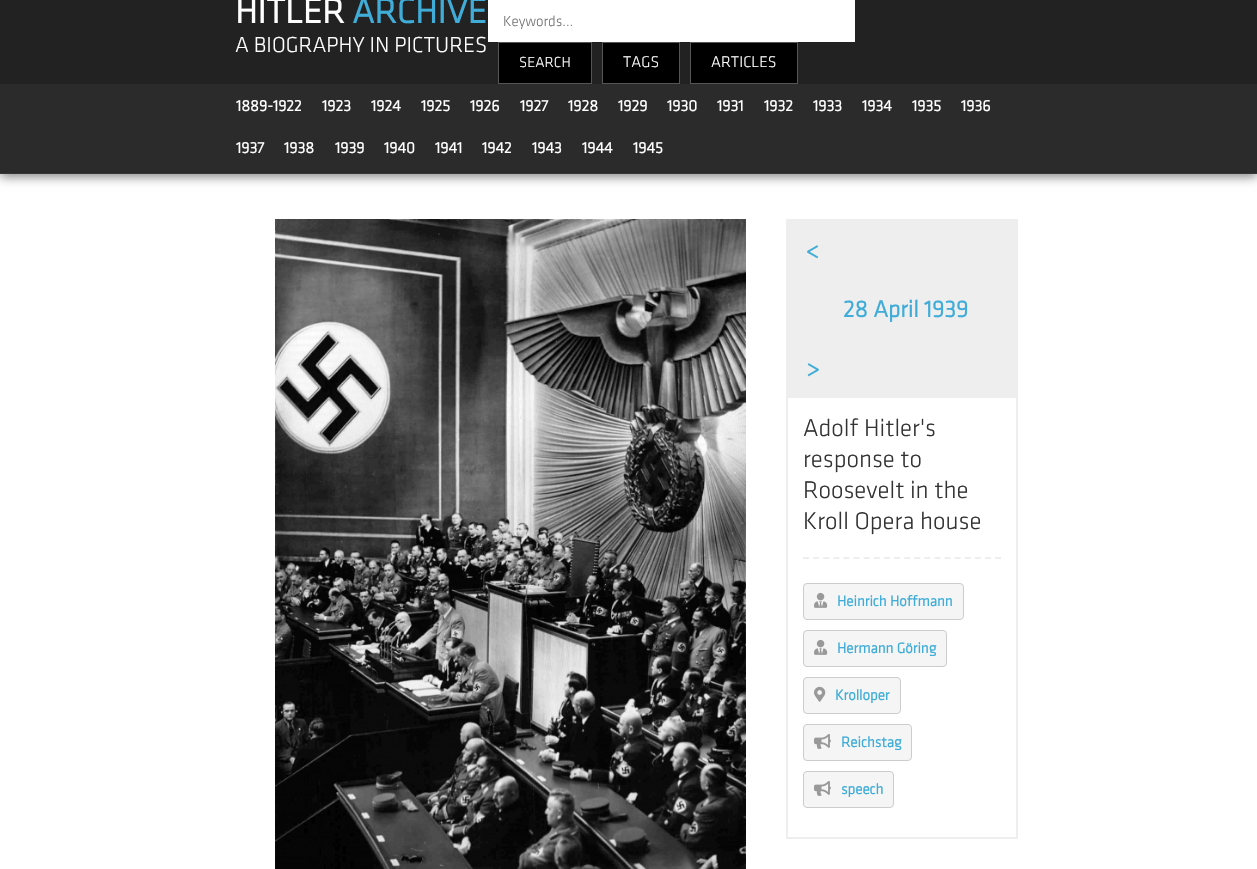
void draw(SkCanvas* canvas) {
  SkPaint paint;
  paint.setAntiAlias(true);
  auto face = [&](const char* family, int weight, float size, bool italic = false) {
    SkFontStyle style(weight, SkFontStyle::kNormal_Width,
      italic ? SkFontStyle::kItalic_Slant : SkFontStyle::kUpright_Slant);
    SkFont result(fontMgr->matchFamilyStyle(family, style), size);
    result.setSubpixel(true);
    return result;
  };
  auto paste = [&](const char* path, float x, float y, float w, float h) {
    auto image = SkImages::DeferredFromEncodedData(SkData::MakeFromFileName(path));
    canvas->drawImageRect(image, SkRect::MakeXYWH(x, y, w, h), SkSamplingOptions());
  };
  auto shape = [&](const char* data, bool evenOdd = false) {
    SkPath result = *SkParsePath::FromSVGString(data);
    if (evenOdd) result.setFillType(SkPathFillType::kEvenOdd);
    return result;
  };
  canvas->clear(0xffffffff);
  paint.setColor(0xff888888);
  paint.setMaskFilter(SkMaskFilter::MakeBlur(kNormal_SkBlurStyle, 5));
  canvas->drawRect(SkRect::MakeXYWH(0, -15, 1257, 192), paint);
  paint.setMaskFilter(nullptr);
  paint.setColor(0xff222222);
  canvas->drawRect(SkRect::MakeXYWH(0, 0, 1257, 84), paint);
  paint.setColor(0xffffffff);
  canvas->drawRect(SkRect::MakeXYWH(488, 0, 367, 42), paint);
  paint.setColor(0xff000000);
  canvas->drawRect(SkRect::MakeXYWH(498.5f, 42.5f, 93, 41), paint);
  paint.setStroke(true);
  paint.setStrokeWidth(1);
  paint.setColor(0xff565656);
  canvas->drawRect(SkRect::MakeXYWH(498.5f, 42.5f, 93, 41), paint);
  paint.setStroke(false);
  paint.setColor(0xff000000);
  canvas->drawRect(SkRect::MakeXYWH(602.5f, 42.5f, 77, 41), paint);
  paint.setStroke(true);
  paint.setColor(0xff565656);
  canvas->drawRect(SkRect::MakeXYWH(602.5f, 42.5f, 77, 41), paint);
  paint.setStroke(false);
  paint.setColor(0xff000000);
  canvas->drawRect(SkRect::MakeXYWH(690.5f, 42.5f, 107, 41), paint);
  paint.setStroke(true);
  paint.setColor(0xff565656);
  canvas->drawRect(SkRect::MakeXYWH(690.5f, 42.5f, 107, 41), paint);
  paint.setStroke(false);
  paint.setColor(0xff2b2b2b);
  canvas->drawRect(SkRect::MakeXYWH(0, 84, 1257, 89), paint);
  paint.setColor(0xff363636);
  canvas->drawRect(SkRect::MakeXYWH(0, 173, 1257, 1), paint);
  paste("img/1.png", 275, 219, 471, 650);
  paint.setStroke(true);
  paint.setStrokeWidth(2);
  paint.setColor(0xffeeeeee);
  canvas->drawRect(SkRect::MakeXYWH(787, 220, 230, 618), paint);
  paint.setStroke(false);
  canvas->drawRect(SkRect::MakeXYWH(788, 221, 228, 177), paint);
  paint.setStroke(true);
  paint.setPathEffect(SkDashPathEffect::Make({{6, 4.11f}}, 0));
  canvas->drawPath(shape("M803 558H1001"), paint);
  paint.setPathEffect(nullptr);
  paint.setStroke(false);
  paint.setColor(0xfff5f5f5);
  canvas->drawRoundRect(SkRect::MakeXYWH(803.5f, 583.5f, 160, 36), 3.5f, 3.5f, paint);
  paint.setStroke(true);
  paint.setStrokeWidth(1);
  paint.setColor(0xffcccccc);
  canvas->drawRoundRect(SkRect::MakeXYWH(803.5f, 583.5f, 160, 36), 3.5f, 3.5f, paint);
  paste("img/2.png", 814, 592, 14, 16);
  paint.setStroke(false);
  paint.setColor(0xfff5f5f5);
  canvas->drawRoundRect(SkRect::MakeXYWH(803.5f, 630.5f, 143, 36), 3.5f, 3.5f, paint);
  paint.setStroke(true);
  paint.setColor(0xffcccccc);
  canvas->drawRoundRect(SkRect::MakeXYWH(803.5f, 630.5f, 143, 36), 3.5f, 3.5f, paint);
  paste("img/2.png", 814, 639, 14, 16);
  paint.setStroke(false);
  paint.setColor(0xfff5f5f5);
  canvas->drawRoundRect(SkRect::MakeXYWH(803.5f, 677.5f, 97, 36), 3.5f, 3.5f, paint);
  paint.setStroke(true);
  paint.setColor(0xffcccccc);
  canvas->drawRoundRect(SkRect::MakeXYWH(803.5f, 677.5f, 97, 36), 3.5f, 3.5f, paint);
  paste("img/3.png", 814, 686, 12, 16);
  paint.setStroke(false);
  paint.setColor(0xfff5f5f5);
  canvas->drawRoundRect(SkRect::MakeXYWH(803.5f, 724.5f, 108, 36), 3.5f, 3.5f, paint);
  paint.setStroke(true);
  paint.setColor(0xffcccccc);
  canvas->drawRoundRect(SkRect::MakeXYWH(803.5f, 724.5f, 108, 36), 3.5f, 3.5f, paint);
  paste("img/4.png", 814, 734, 17, 15);
  paint.setStroke(false);
  paint.setColor(0xfff5f5f5);
  canvas->drawRoundRect(SkRect::MakeXYWH(803.5f, 771.5f, 90, 36), 3.5f, 3.5f, paint);
  paint.setStroke(true);
  paint.setColor(0xffcccccc);
  canvas->drawRoundRect(SkRect::MakeXYWH(803.5f, 771.5f, 90, 36), 3.5f, 3.5f, paint);
  paste("img/4.png", 814, 781, 17, 15);
  auto f0 = face("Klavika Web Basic", 700, 36);
  paint.setStroke(false);
  paint.setColor(0xffffffff);
  canvas->drawString("HITLER", 235, 23, f0, paint);
  paint.setColor(0xff40add9);
  canvas->drawString("ARCHIVE", 352, 23, f0, paint);
  auto f1 = face("Klavika Web Basic", 300, 22.4f);
  paint.setColor(0xffffffff);
  canvas->drawString("A BIOGRAPHY IN PICTURES", 235, 52, f1, paint);
  auto f2 = face("Klavika Web Basic", 300, 15);
  paint.setColor(0xff757575);
  canvas->drawString("Keywords...", 503, 26, f2, paint);
  paint.setColor(0xffffffff);
  canvas->drawString("SEARCH", 519, 67, f2, paint);
  auto f3 = face("Klavika Web Basic", 300, 16);
  canvas->drawString("TAGS", 623, 67, f3, paint);
  canvas->drawString("ARTICLES", 711, 67, f3, paint);
  auto f4 = face("Klavika Web Basic", 700, 16);
  {
    const struct { const char* s; float x, y; } items[] = {
      {"1889-1922", 236, 111},
      {"1923", 322, 111},
      {"1924", 371, 111},
      {"1925", 421, 111},
      {"1926", 470, 111},
      {"1927", 520, 111},
      {"1928", 568, 111},
      {"1929", 618, 111},
      {"1930", 667, 111},
      {"1931", 717, 111},
      {"1932", 764, 111},
      {"1933", 813, 111},
      {"1934", 862, 111},
      {"1935", 912, 111},
      {"1936", 961, 111},
      {"1937", 236, 153},
      {"1938", 284, 153},
      {"1939", 335, 153},
      {"1940", 384, 153},
      {"1941", 435, 153},
      {"1942", 482, 153},
      {"1943", 532, 153},
      {"1944", 582, 153},
      {"1945", 633, 153},
    };
    for (auto [s, x, y] : items) {
      canvas->drawString(s, x, y, f4, paint);
    }
  }
  auto f5 = face("Klavika Web Basic", 700, 24);
  paint.setColor(0xff40add9);
  {
    const struct { const char* s; float x, y; } items[] = {
      {"<", 806, 258},
      {"28 April 1939", 843, 317},
      {">", 806, 376},
    };
    for (auto [s, x, y] : items) {
      canvas->drawString(s, x, y, f5, paint);
    }
  }
  auto f6 = face("Klavika Web Basic", 300, 25);
  paint.setColor(0xff333333);
  {
    const struct { const char* s; float x, y; } items[] = {
      {"Adolf Hitler's", 803, 436},
      {"response to", 803, 467},
      {"Roosevelt in the", 803, 498},
      {"Kroll Opera house", 803, 529},
    };
    for (auto [s, x, y] : items) {
      canvas->drawString(s, x, y, f6, paint);
    }
  }
  auto f7 = face("Klavika Web Basic", 700, 15);
  paint.setColor(0xff40add9);
  {
    const struct { const char* s; float x, y; } items[] = {
      {"Heinrich Hoffmann", 837, 606},
      {"Hermann Göring", 837, 653},
      {"Krolloper", 835, 700},
      {"Reichstag", 841, 747},
      {"speech", 841, 794},
    };
    for (auto [s, x, y] : items) {
      canvas->drawString(s, x, y, f7, paint);
    }
  }
}
